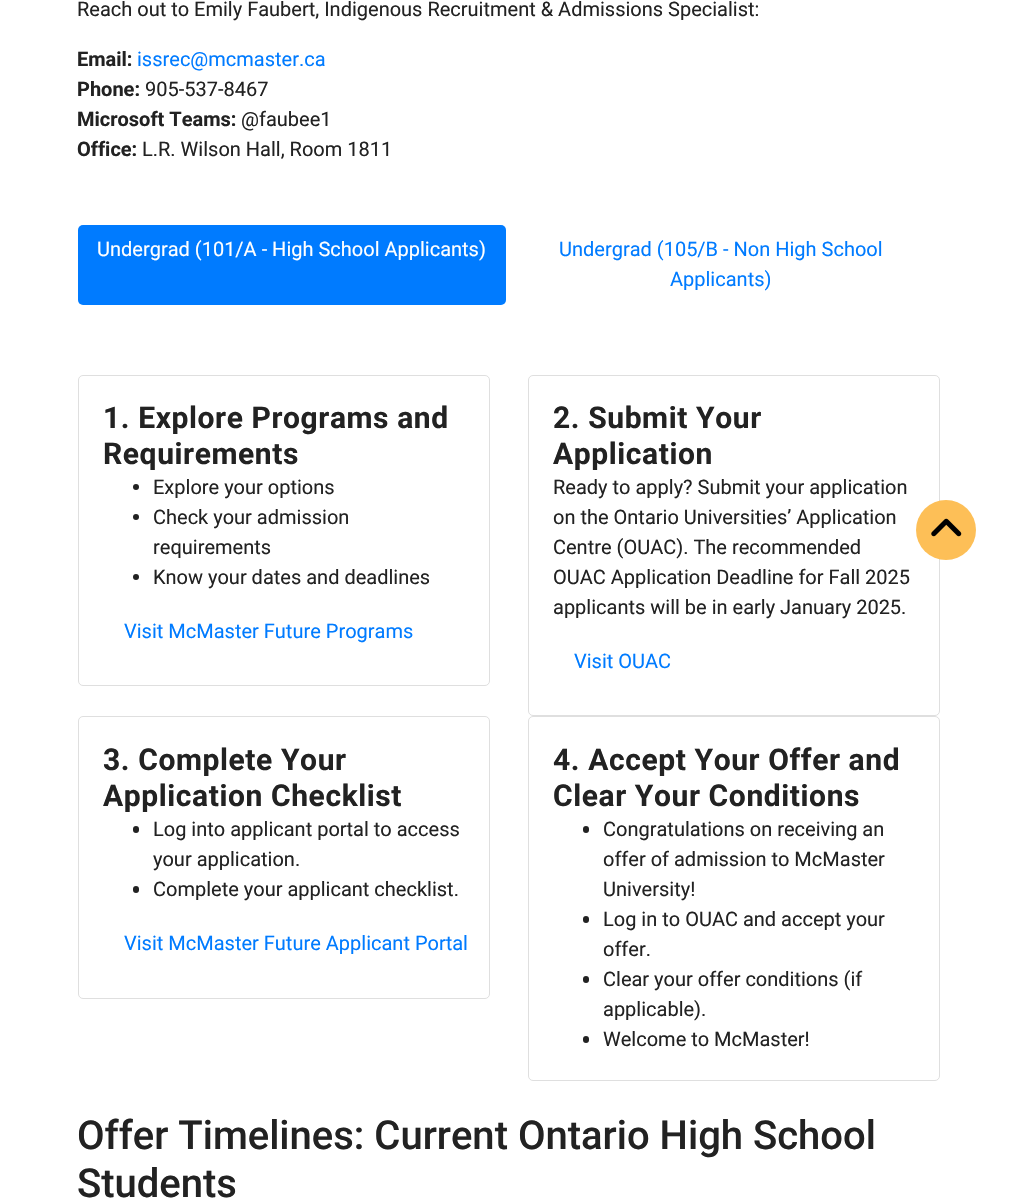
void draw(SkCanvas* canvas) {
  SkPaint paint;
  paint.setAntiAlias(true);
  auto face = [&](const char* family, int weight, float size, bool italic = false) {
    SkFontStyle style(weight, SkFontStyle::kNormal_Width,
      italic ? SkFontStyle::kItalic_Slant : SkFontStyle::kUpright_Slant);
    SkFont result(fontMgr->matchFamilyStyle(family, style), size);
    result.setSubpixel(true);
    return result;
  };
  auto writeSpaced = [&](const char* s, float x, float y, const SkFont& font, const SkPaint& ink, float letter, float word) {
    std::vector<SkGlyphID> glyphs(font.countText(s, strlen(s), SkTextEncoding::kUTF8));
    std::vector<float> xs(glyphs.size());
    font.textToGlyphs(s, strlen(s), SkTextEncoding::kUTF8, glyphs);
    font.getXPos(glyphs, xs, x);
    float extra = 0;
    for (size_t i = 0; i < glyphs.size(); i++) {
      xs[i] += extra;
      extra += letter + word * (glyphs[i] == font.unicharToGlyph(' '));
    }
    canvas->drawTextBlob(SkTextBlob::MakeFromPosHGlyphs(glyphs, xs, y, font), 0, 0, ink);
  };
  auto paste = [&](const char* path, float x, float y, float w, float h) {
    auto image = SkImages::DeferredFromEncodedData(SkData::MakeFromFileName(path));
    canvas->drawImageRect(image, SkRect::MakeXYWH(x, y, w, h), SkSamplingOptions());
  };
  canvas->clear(0xffffffff);
  paint.setColor(0xff007bff);
  canvas->drawRoundRect(SkRect::MakeXYWH(78, 225, 428, 80), 5, 5, paint);
  paint.setStroke(true);
  paint.setStrokeWidth(1);
  paint.setColor(0xffdfdfdf);
  canvas->drawRoundRect(SkRect::MakeXYWH(78.5f, 375.5f, 411, 310), 4.5f, 4.5f, paint);
  paint.setStroke(false);
  paint.setColor(0xff222222);
  canvas->drawCircle(136, 487, 3, paint);
  canvas->drawCircle(136, 517, 3, paint);
  canvas->drawCircle(136, 577, 3, paint);
  paint.setStroke(true);
  paint.setColor(0xffdfdfdf);
  canvas->drawRoundRect(SkRect::MakeXYWH(528.5f, 375.5f, 411, 340), 4.5f, 4.5f, paint);
  canvas->drawRoundRect(SkRect::MakeXYWH(78.5f, 716.5f, 411, 282), 4.5f, 4.5f, paint);
  paint.setStroke(false);
  paint.setColor(0xff222222);
  canvas->drawRoundRect(SkRect::MakeXYWH(133, 826, 6, 7), 3, 3, paint);
  canvas->drawRoundRect(SkRect::MakeXYWH(133, 886, 6, 7), 3, 3, paint);
  paint.setStroke(true);
  paint.setColor(0xffdfdfdf);
  canvas->drawRoundRect(SkRect::MakeXYWH(528.5f, 716.5f, 411, 364), 4.5f, 4.5f, paint);
  paint.setStroke(false);
  paint.setColor(0xff222222);
  canvas->drawRoundRect(SkRect::MakeXYWH(583, 826, 6, 7), 3, 3, paint);
  canvas->drawRoundRect(SkRect::MakeXYWH(583, 916, 6, 7), 3, 3, paint);
  canvas->drawRoundRect(SkRect::MakeXYWH(583, 976, 6, 7), 3, 3, paint);
  canvas->drawRoundRect(SkRect::MakeXYWH(583, 1036, 6, 7), 3, 3, paint);
  paint.setColor(0xfffdbf57);
  canvas->drawCircle(946, 530, 30, paint);
  paste("img/1.png", 931, 518, 31, 19);
  auto f0 = face("Roboto", 400, 20);
  paint.setColor(0xff222222);
  canvas->drawString("Reach out to Emily Faubert, Indigenous Recruitment & Admissions Specialist:", 77, 16, f0, paint);
  auto f1 = face("Roboto", 700, 20);
  canvas->drawString("Email:", 77, 66, f1, paint);
  paint.setColor(0xff007bff);
  canvas->drawString("issrec@mcmaster.ca", 137, 66, f0, paint);
  paint.setColor(0xff222222);
  canvas->drawString("Phone:", 77, 96, f1, paint);
  canvas->drawString("905-537-8467", 145, 96, f0, paint);
  canvas->drawString("Microsoft Teams:", 77, 126, f1, paint);
  canvas->drawString("@faubee1", 241, 126, f0, paint);
  canvas->drawString("Office:", 77, 156, f1, paint);
  canvas->drawString("L.R. Wilson Hall, Room 1811", 142, 156, f0, paint);
  paint.setColor(0xffffffff);
  canvas->drawString("Undergrad (101/A - High School Applicants)", 97, 256, f0, paint);
  paint.setColor(0xff007bff);
  canvas->drawString("Undergrad (105/B - Non High School", 559, 256, f0, paint);
  canvas->drawString("Applicants)", 670, 286, f0, paint);
  auto f2 = face("Roboto", 700, 30);
  paint.setColor(0xff222222);
  writeSpaced("1. Explore Programs and", 103, 428, f2, paint, 0.6f, 0);
  writeSpaced("Requirements", 103, 464, f2, paint, 0.6f, 0);
  {
    const struct { const char* s; float x, y; } items[] = {
      {"Explore your options", 153, 494},
      {"Check your admission", 153, 524},
      {"requirements", 153, 554},
      {"Know your dates and deadlines", 153, 584},
    };
    for (auto [s, x, y] : items) {
      canvas->drawString(s, x, y, f0, paint);
    }
  }
  paint.setColor(0xff007bff);
  canvas->drawString("Visit McMaster Future Programs", 124, 638, f0, paint);
  paint.setColor(0xff222222);
  writeSpaced("2. Submit Your", 553, 428, f2, paint, 0.6f, 0);
  writeSpaced("Application", 553, 464, f2, paint, 0.6f, 0);
  {
    const struct { const char* s; float x, y; } items[] = {
      {"Ready to apply? Submit your application", 553, 494},
      {"on the Ontario Universities’ Application", 553, 524},
      {"Centre (OUAC). The recommended", 553, 554},
      {"OUAC Application Deadline for Fall 2025", 553, 584},
      {"applicants will be in early January 2025.", 553, 614},
    };
    for (auto [s, x, y] : items) {
      canvas->drawString(s, x, y, f0, paint);
    }
  }
  paint.setColor(0xff007bff);
  canvas->drawString("Visit OUAC", 574, 668, f0, paint);
  paint.setColor(0xff222222);
  writeSpaced("3. Complete Your", 103, 770, f2, paint, 0.6f, 0);
  writeSpaced("Application Checklist", 103, 806, f2, paint, 0.6f, 0);
  {
    const struct { const char* s; float x, y; } items[] = {
      {"Log into applicant portal to access", 153, 836},
      {"your application.", 153, 866},
      {"Complete your applicant checklist.", 153, 896},
    };
    for (auto [s, x, y] : items) {
      canvas->drawString(s, x, y, f0, paint);
    }
  }
  paint.setColor(0xff007bff);
  canvas->drawString("Visit McMaster Future Applicant Portal", 124, 950, f0, paint);
  paint.setColor(0xff222222);
  writeSpaced("4. Accept Your Offer and", 553, 770, f2, paint, 0.6f, 0);
  writeSpaced("Clear Your Conditions", 553, 806, f2, paint, 0.6f, 0);
  {
    const struct { const char* s; float x, y; } items[] = {
      {"Congratulations on receiving an", 603, 836},
      {"offer of admission to McMaster", 603, 866},
      {"University!", 603, 896},
      {"Log in to OUAC and accept your", 603, 926},
      {"offer.", 603, 956},
      {"Clear your offer conditions (if", 603, 986},
      {"applicable).", 603, 1016},
      {"Welcome to McMaster!", 603, 1046},
    };
    for (auto [s, x, y] : items) {
      canvas->drawString(s, x, y, f0, paint);
    }
  }
  auto f3 = face("Roboto", 500, 40);
  canvas->drawString("Offer Timelines: Current Ontario High School", 77, 1149, f3, paint);
  canvas->drawString("Students", 77, 1197, f3, paint);
}
